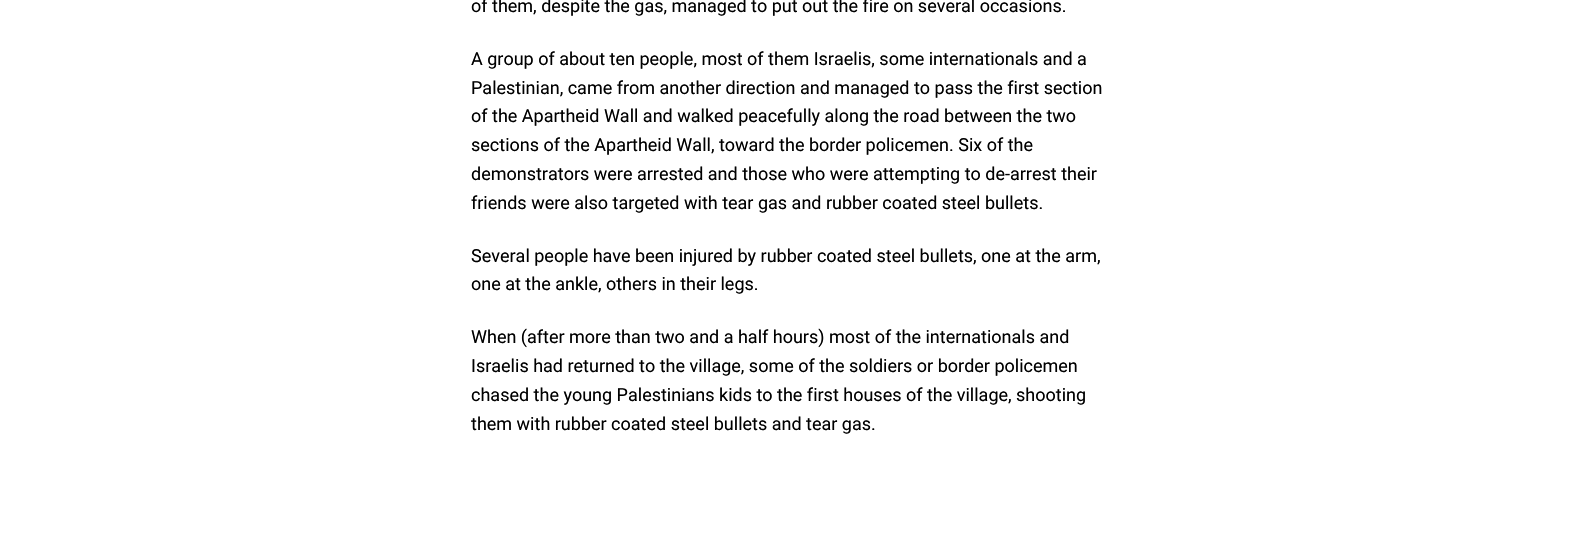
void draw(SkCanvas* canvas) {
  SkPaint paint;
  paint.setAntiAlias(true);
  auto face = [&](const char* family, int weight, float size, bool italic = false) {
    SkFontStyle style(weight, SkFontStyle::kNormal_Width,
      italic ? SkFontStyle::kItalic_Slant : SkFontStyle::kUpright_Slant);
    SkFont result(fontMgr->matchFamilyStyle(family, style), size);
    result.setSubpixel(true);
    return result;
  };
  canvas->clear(0xffffffff);
  auto f0 = face("Roboto", 400, 18);
  paint.setColor(0xff000000);
  {
    const struct { const char* s; float x, y; } items[] = {
      {"of them, despite the gas, managed to put out the fire on several occasions.", 471, 12},
      {"A group of about ten people, most of them Israelis, some internationals and a", 471, 65},
      {"Palestinian, came from another direction and managed to pass the first section", 471, 94},
      {"of the Apartheid Wall and walked peacefully along the road between the two", 471, 122},
      {"sections of the Apartheid Wall, toward the border policemen. Six of the", 471, 151},
      {"demonstrators were arrested and those who were attempting to de-arrest their", 471, 180},
      {"friends were also targeted with tear gas and rubber coated steel bullets.", 471, 209},
      {"Several people have been injured by rubber coated steel bullets, one at the arm,", 471, 262},
      {"one at the ankle, others in their legs.", 471, 290},
      {"When (after more than two and a half hours) most of the internationals and", 471, 343},
      {"Israelis had returned to the village, some of the soldiers or border policemen", 471, 372},
      {"chased the young Palestinians kids to the first houses of the village, shooting", 471, 401},
      {"them with rubber coated steel bullets and tear gas.", 471, 430},
    };
    for (auto [s, x, y] : items) {
      canvas->drawString(s, x, y, f0, paint);
    }
  }
}
